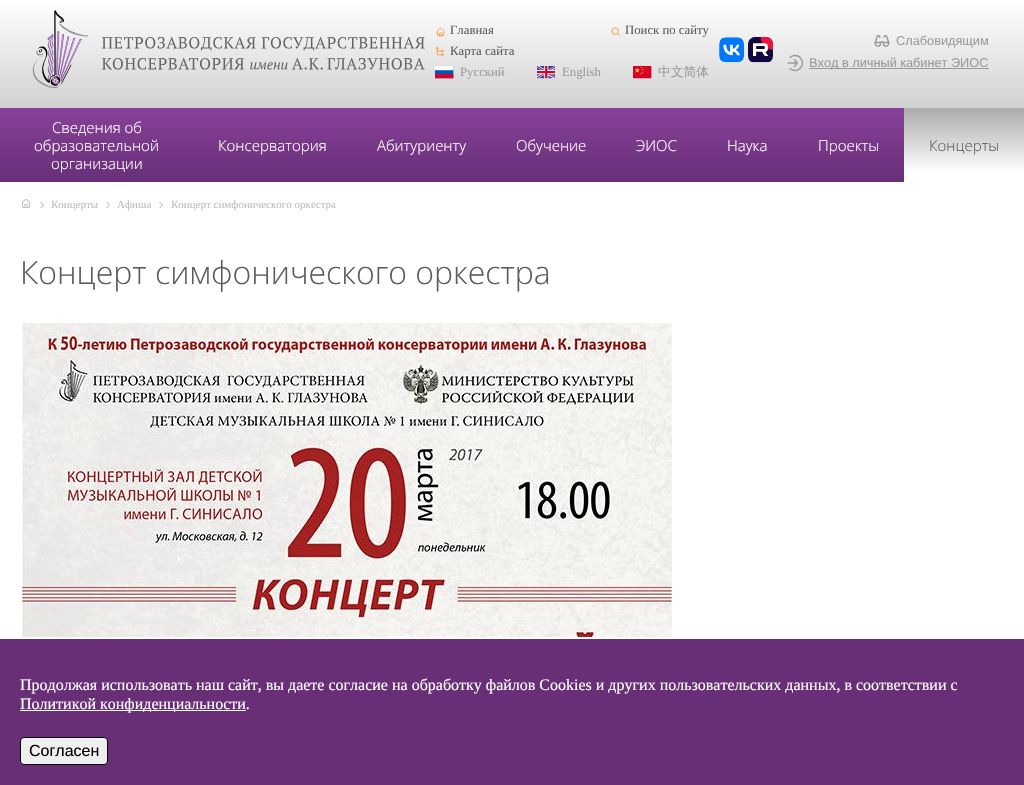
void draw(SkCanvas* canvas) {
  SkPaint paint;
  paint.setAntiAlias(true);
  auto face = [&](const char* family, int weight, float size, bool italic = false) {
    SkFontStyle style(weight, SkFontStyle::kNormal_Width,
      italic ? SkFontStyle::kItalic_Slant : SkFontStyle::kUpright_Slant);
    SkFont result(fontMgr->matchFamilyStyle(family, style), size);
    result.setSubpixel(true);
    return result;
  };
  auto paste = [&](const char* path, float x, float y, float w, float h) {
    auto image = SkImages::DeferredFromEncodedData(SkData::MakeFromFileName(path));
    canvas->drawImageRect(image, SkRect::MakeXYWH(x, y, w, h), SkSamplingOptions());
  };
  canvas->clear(0xffffffff);
  {
    const SkColor colors[] = {0xffffffff, 0xffd1d1d1};
    const float stops[] = {0, 1};
    const SkPoint ends[] = {{512, 0}, {512, 108}};
    paint.setShader(SkGradientShader::MakeLinear(ends, colors, stops, 2, SkTileMode::kClamp));
    paint.setAlpha(255);
  }
  canvas->drawRect(SkRect::MakeXYWH(0, 6, 1024, 102), paint);
  paste("img/1.png", 32, 10, 393, 78);
  paste("img/2.png", 436, 27, 9, 10);
  paste("img/3.png", 611, 27, 9, 9);
  paste("img/4.png", 435, 46, 9, 11);
  paste("img/5.png", 435, 66, 19, 13);
  paste("img/6.png", 537, 66, 18, 13);
  paste("img/7.png", 633, 66, 19, 13);
  paste("img/8.png", 719, 37, 25, 26);
  paste("img/9.png", 748, 37, 25, 26);
  paste("img/10.png", 874, 34, 16, 13);
  paste("img/11.png", 787, 54, 17, 18);
  paint.setShader(nullptr);
  paint.setColor(0xff9b9b9b);
  canvas->drawRect(SkRect::MakeXYWH(809, 68, 180, 1), paint);
  {
    const SkColor colors[] = {0xff874199, 0xff682f77};
    const float stops[] = {0, 1};
    const SkPoint ends[] = {{512, 108}, {512, 182}};
    paint.setShader(SkGradientShader::MakeLinear(ends, colors, stops, 2, SkTileMode::kClamp));
    paint.setAlpha(255);
  }
  canvas->drawRect(SkRect::MakeXYWH(0, 108, 904, 74), paint);
  {
    const SkColor colors[] = {0xffababab, 0xffffffff};
    const float stops[] = {0, 0.88f};
    const SkPoint ends[] = {{964, 108}, {964, 182}};
    paint.setShader(SkGradientShader::MakeLinear(ends, colors, stops, 2, SkTileMode::kClamp));
    paint.setAlpha(255);
  }
  canvas->drawRect(SkRect::MakeXYWH(904, 108, 120, 63), paint);
  paste("img/12.png", 22, 199, 9, 9);
  paste("img/13.png", 40, 202, 4, 6);
  paste("img/13.png", 106, 202, 4, 6);
  paste("img/13.png", 159, 202, 4, 6);
  paste("img/14.png", 22, 323, 650, 314);
  paint.setShader(nullptr);
  paint.setColor(0xff682f77);
  canvas->drawRect(SkRect::MakeXYWH(0, 639, 1024, 146), paint);
  paint.setColor(0xffffffff);
  canvas->drawRect(SkRect::MakeXYWH(20, 710, 226, 1), paint);
  paint.setColor(0xffefefef);
  canvas->drawRoundRect(SkRect::MakeXYWH(20.5f, 737.5f, 87, 27), 3.5f, 3.5f, paint);
  paint.setStroke(true);
  paint.setStrokeWidth(1);
  paint.setColor(0xff000000);
  canvas->drawRoundRect(SkRect::MakeXYWH(20.5f, 737.5f, 87, 27), 3.5f, 3.5f, paint);
  auto f0 = face("Liberation Serif", 400, 12.75f);
  paint.setStroke(false);
  paint.setColor(0xff5d5d5d);
  {
    const struct { const char* s; float x, y; } items[] = {
      {"Главная", 450, 34},
      {"Поиск по сайту", 625, 34},
      {"Карта сайта", 450, 55},
    };
    for (auto [s, x, y] : items) {
      canvas->drawString(s, x, y, f0, paint);
    }
  }
  paint.setColor(0xff9b9b9b);
  canvas->drawString("Русский", 460, 76, f0, paint);
  canvas->drawString("English", 562, 76, f0, paint);
  auto f1 = face("WenQuanYi Zen Hei", 500, 12.75f);
  canvas->drawString("中文简体", 658, 76, f1, paint);
  auto f2 = face("Liberation Sans", 400, 12.75f);
  canvas->drawString("Слабовидящим", 896, 45, f2, paint);
  canvas->drawString("Вход в личный кабинет ЭИОС", 809, 67, f2, paint);
  auto f3 = face("Open Sans", 300, 15);
  paint.setColor(0xffffffff);
  {
    const struct { const char* s; float x, y; } items[] = {
      {"Сведения об", 52, 133},
      {"образовательной", 34, 151},
      {"организации", 51, 169},
      {"Консерватория", 218, 151},
      {"Абитуриенту", 377, 151},
      {"Обучение", 516, 151},
      {"ЭИОС", 636, 151},
      {"Наука", 727, 151},
      {"Проекты", 818, 151},
    };
    for (auto [s, x, y] : items) {
      canvas->drawString(s, x, y, f3, paint);
    }
  }
  paint.setColor(0xff5d5d5d);
  canvas->drawString("Концерты", 929, 151, f3, paint);
  auto f4 = face("Liberation Serif", 400, 11);
  paint.setColor(0xffbfbfbf);
  {
    const struct { const char* s; float x, y; } items[] = {
      {"Концерты", 51, 208},
      {"Афиша", 117, 208},
      {"Концерт симфонического оркестра", 171, 208},
    };
    for (auto [s, x, y] : items) {
      canvas->drawString(s, x, y, f4, paint);
    }
  }
  auto f5 = face("Open Sans", 300, 32);
  paint.setColor(0xff5d5d5d);
  canvas->drawString("Концерт симфонического оркестра", 20, 284, f5, paint);
  auto f6 = face("Liberation Serif", 400, 16);
  paint.setColor(0xffffffff);
  canvas->drawString("Продолжая использовать наш сайт, вы даете согласие на обработку файлов Cookies и других пользовательских данных, в соответствии с", 20, 690, f6, paint);
  canvas->drawString("Политикой конфиденциальности.", 20, 709, f6, paint);
  auto f7 = face("Liberation Sans", 400, 16);
  paint.setColor(0xff000000);
  canvas->drawString("Согласен", 29, 756, f7, paint);
}
